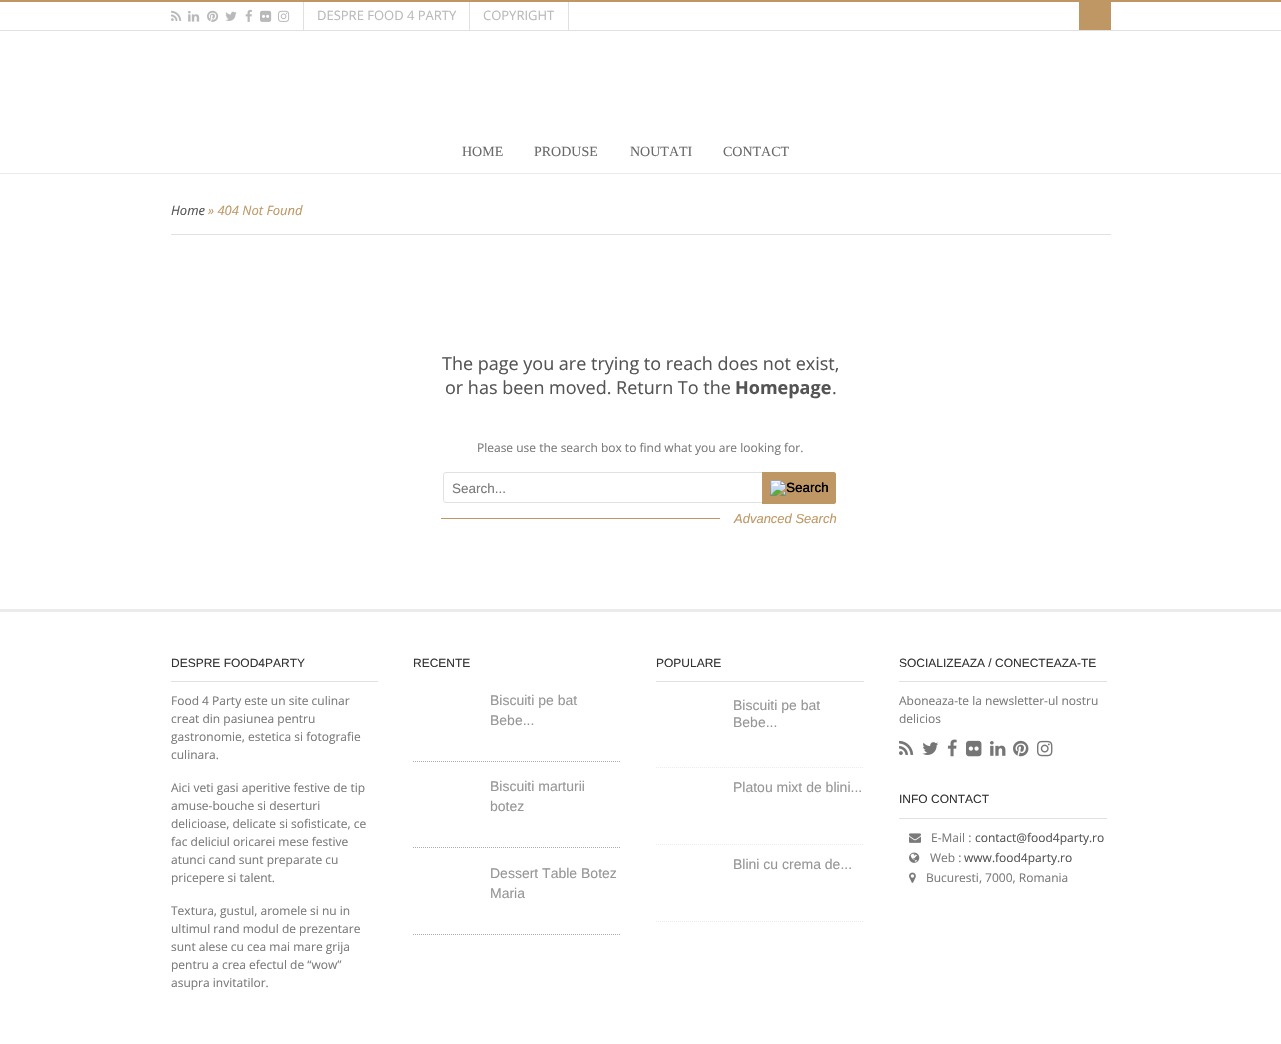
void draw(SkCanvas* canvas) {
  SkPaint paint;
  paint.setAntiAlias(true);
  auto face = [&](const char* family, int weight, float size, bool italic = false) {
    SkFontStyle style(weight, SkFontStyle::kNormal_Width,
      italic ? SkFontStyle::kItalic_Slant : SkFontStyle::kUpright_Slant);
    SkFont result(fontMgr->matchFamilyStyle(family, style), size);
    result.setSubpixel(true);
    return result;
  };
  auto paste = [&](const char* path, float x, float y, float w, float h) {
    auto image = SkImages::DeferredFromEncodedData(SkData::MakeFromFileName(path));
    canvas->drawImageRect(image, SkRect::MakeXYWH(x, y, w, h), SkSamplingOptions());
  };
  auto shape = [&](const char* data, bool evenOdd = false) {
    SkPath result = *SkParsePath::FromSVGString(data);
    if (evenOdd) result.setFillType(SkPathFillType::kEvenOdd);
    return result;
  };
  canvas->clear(0xffffffff);
  {
    const struct { float x, y, w, h; SkColor color; } items[] = {
      {0, 0, 1281, 2, 0xffbf9764},
      {0, 30, 1281, 1, 0xffe1e1e1},
      {303, 2, 1, 28, 0xffe1e1e1},
    };
    for (auto [x, y, w, h, color] : items) {
      paint.setColor(color);
      canvas->drawRect(SkRect::MakeXYWH(x, y, w, h), paint);
    }
  }
  paste("img/1.png", 171, 10, 11, 11);
  paste("img/2.png", 188, 11, 12, 11);
  paste("img/3.png", 207, 10, 12, 12);
  paste("img/4.png", 225, 11, 12, 10);
  paste("img/5.png", 245, 9, 7, 13);
  paste("img/6.png", 260, 10, 12, 12);
  paste("img/7.png", 278, 10, 12, 12);
  {
    const struct { float x, y, w, h; SkColor color; } items[] = {
      {469, 2, 1, 28, 0xffe1e1e1},
      {568, 2, 1, 28, 0xffe1e1e1},
      {1079, 2, 32, 28, 0xffbf9764},
      {0, 173, 1281, 1, 0xffebebeb},
      {171, 234, 940, 1, 0xffe1e1e1},
    };
    for (auto [x, y, w, h, color] : items) {
      paint.setColor(color);
      canvas->drawRect(SkRect::MakeXYWH(x, y, w, h), paint);
    }
  }
  paint.setStroke(true);
  paint.setStrokeWidth(1);
  canvas->drawRoundRect(SkRect::MakeXYWH(443.5f, 472.5f, 390, 30), 2.5f, 2.5f, paint);
  paint.setStroke(false);
  paint.setColor(0xffbf9764);
  canvas->drawPath(shape("M762 472H834C835 472 836 473 836 474V502C836 503 835 504 834 504H762Z"), paint);
  paste("img/8.png", 770, 480, 58, 16);
  {
    const struct { float x, y, w, h; SkColor color; } items[] = {
      {441, 518, 279, 1, 0xffbf9764},
      {0, 609, 1281, 3, 0xffebebeb},
      {171, 681, 207, 1, 0xffe1e1e1},
    };
    for (auto [x, y, w, h, color] : items) {
      paint.setColor(color);
      canvas->drawRect(SkRect::MakeXYWH(x, y, w, h), paint);
    }
  }
  paint.setStroke(true);
  paint.setColor(0xffababab);
  paint.setPathEffect(SkDashPathEffect::Make({{1, 1}}, 0));
  canvas->drawPath(shape("M413 761.5H621"), paint);
  paint.setPathEffect(nullptr);
  paint.setPathEffect(SkDashPathEffect::Make({{1, 1}}, 0));
  canvas->drawPath(shape("M413 847.5H621"), paint);
  paint.setPathEffect(nullptr);
  paint.setPathEffect(SkDashPathEffect::Make({{1, 1}}, 0));
  canvas->drawPath(shape("M413 934.5H621"), paint);
  paint.setPathEffect(nullptr);
  paint.setStroke(false);
  paint.setColor(0xffe1e1e1);
  canvas->drawRect(SkRect::MakeXYWH(656, 681, 208, 1), paint);
  paint.setStroke(true);
  paint.setColor(0xffebebeb);
  paint.setPathEffect(SkDashPathEffect::Make({{1, 1}}, 0));
  canvas->drawPath(shape("M656 767.5H864"), paint);
  paint.setPathEffect(nullptr);
  paint.setPathEffect(SkDashPathEffect::Make({{1, 1}}, 0));
  canvas->drawPath(shape("M656 844.5H864"), paint);
  paint.setPathEffect(nullptr);
  paint.setPathEffect(SkDashPathEffect::Make({{1, 1}}, 0));
  canvas->drawPath(shape("M656 921.5H864"), paint);
  paint.setPathEffect(nullptr);
  paint.setStroke(false);
  paint.setColor(0xffe1e1e1);
  canvas->drawRect(SkRect::MakeXYWH(899, 681, 208, 1), paint);
  paste("img/9.png", 899, 740, 15, 15);
  paste("img/10.png", 922, 742, 17, 13);
  paste("img/11.png", 947, 739, 10, 18);
  paste("img/12.png", 966, 740, 16, 17);
  paste("img/13.png", 990, 741, 16, 15);
  paste("img/14.png", 1013, 740, 16, 17);
  paste("img/15.png", 1037, 740, 16, 17);
  canvas->drawRect(SkRect::MakeXYWH(899, 818, 208, 1), paint);
  paste("img/16.png", 909, 833, 12, 10);
  paste("img/17.png", 909, 852, 11, 11);
  paste("img/18.png", 909, 872, 7, 11);
  auto f0 = face("Open Sans", 400, 13);
  paint.setColor(0xffb9b9b9);
  canvas->drawString("DESPRE FOOD 4 PARTY", 317, 20, f0, paint);
  canvas->drawString("COPYRIGHT", 483, 20, f0, paint);
  auto f1 = face("Liberation Serif", 400, 14);
  paint.setColor(0xff6a6a6a);
  {
    const struct { const char* s; float x, y; } items[] = {
      {"HOME", 462, 156},
      {"PRODUSE", 534, 156},
      {"NOUTATI", 630, 156},
      {"CONTACT", 723, 156},
    };
    for (auto [s, x, y] : items) {
      canvas->drawString(s, x, y, f1, paint);
    }
  }
  auto f2 = face("Open Sans", 400, 13, true);
  paint.setColor(0xff545454);
  canvas->drawString("Home", 171, 215, f2, paint);
  paint.setColor(0xffbf9764);
  canvas->drawString("» 404 Not Found", 208, 215, f2, paint);
  auto f3 = face("Open Sans", 400, 18);
  paint.setColor(0xff545454);
  canvas->drawString("The page you are trying to reach does not exist,", 442, 370, f3, paint);
  canvas->drawString("or has been moved. Return To the", 445, 394, f3, paint);
  auto f4 = face("Open Sans", 700, 18);
  canvas->drawString("Homepage", 735, 394, f4, paint);
  canvas->drawString(".", 832, 394, f3, paint);
  auto f5 = face("Open Sans", 400, 12);
  paint.setColor(0xff7a7a7a);
  canvas->drawString("Please use the search box to find what you are looking for.", 477, 452, f5, paint);
  auto f6 = face("Liberation Sans", 400, 13.5f);
  canvas->drawString("Search...", 452, 493, f6, paint);
  paint.setColor(0xff000000);
  canvas->drawString("Search", 786, 492, f6, paint);
  auto f7 = face("Liberation Sans", 400, 13, true);
  paint.setColor(0xffbf9764);
  canvas->drawString("Advanced Search", 734, 523, f7, paint);
  auto f8 = face("Liberation Sans", 400, 12);
  paint.setColor(0xff333333);
  canvas->drawString("DESPRE FOOD4PARTY", 171, 667, f8, paint);
  paint.setColor(0xff7a7a7a);
  {
    const struct { const char* s; float x, y; } items[] = {
      {"Food 4 Party este un site culinar", 171, 705},
      {"creat din pasiunea pentru", 171, 723},
      {"gastronomie, estetica si fotografie", 171, 741},
      {"culinara.", 171, 759},
      {"Aici veti gasi aperitive festive de tip", 171, 792},
      {"amuse-bouche si deserturi", 171, 810},
      {"delicioase, delicate si sofisticate, ce", 171, 828},
      {"fac deliciul oricarei mese festive", 171, 846},
      {"atunci cand sunt preparate cu", 171, 864},
      {"pricepere si talent.", 171, 882},
      {"Textura, gustul, aromele si nu in", 171, 915},
      {"ultimul rand modul de prezentare", 171, 933},
      {"sunt alese cu cea mai mare grija", 171, 951},
      {"pentru a crea efectul de “wow”", 171, 969},
      {"asupra invitatilor.", 171, 987},
    };
    for (auto [s, x, y] : items) {
      canvas->drawString(s, x, y, f5, paint);
    }
  }
  paint.setColor(0xff333333);
  canvas->drawString("RECENTE", 413, 667, f8, paint);
  auto f9 = face("Liberation Sans", 400, 14);
  paint.setColor(0xff969696);
  {
    const struct { const char* s; float x, y; } items[] = {
      {"Biscuiti pe bat", 490, 705},
      {"Bebe...", 490, 725},
      {"Biscuiti marturii", 490, 791},
      {"botez", 490, 811},
      {"Dessert Table Botez", 490, 878},
      {"Maria", 490, 898},
    };
    for (auto [s, x, y] : items) {
      canvas->drawString(s, x, y, f9, paint);
    }
  }
  paint.setColor(0xff333333);
  canvas->drawString("POPULARE", 656, 667, f8, paint);
  paint.setColor(0xff969696);
  {
    const struct { const char* s; float x, y; } items[] = {
      {"Biscuiti pe bat", 733, 710},
      {"Bebe...", 733, 727},
      {"Platou mixt de blini...", 733, 792},
      {"Blini cu crema de...", 733, 869},
    };
    for (auto [s, x, y] : items) {
      canvas->drawString(s, x, y, f9, paint);
    }
  }
  paint.setColor(0xff333333);
  canvas->drawString("SOCIALIZEAZA / CONECTEAZA-TE", 899, 667, f8, paint);
  paint.setColor(0xff7a7a7a);
  canvas->drawString("Aboneaza-te la newsletter-ul nostru", 899, 705, f5, paint);
  canvas->drawString("delicios", 899, 723, f5, paint);
  paint.setColor(0xff333333);
  canvas->drawString("INFO CONTACT", 899, 803, f8, paint);
  paint.setColor(0xff7a7a7a);
  canvas->drawString("E-Mail :", 931, 842, f5, paint);
  paint.setColor(0xff545454);
  canvas->drawString("contact@food4party.ro", 975, 842, f5, paint);
  paint.setColor(0xff7a7a7a);
  canvas->drawString("Web :", 930, 862, f5, paint);
  paint.setColor(0xff545454);
  canvas->drawString("www.food4party.ro", 964, 862, f5, paint);
  paint.setColor(0xff7a7a7a);
  canvas->drawString("Bucuresti, 7000, Romania", 926, 882, f5, paint);
}
